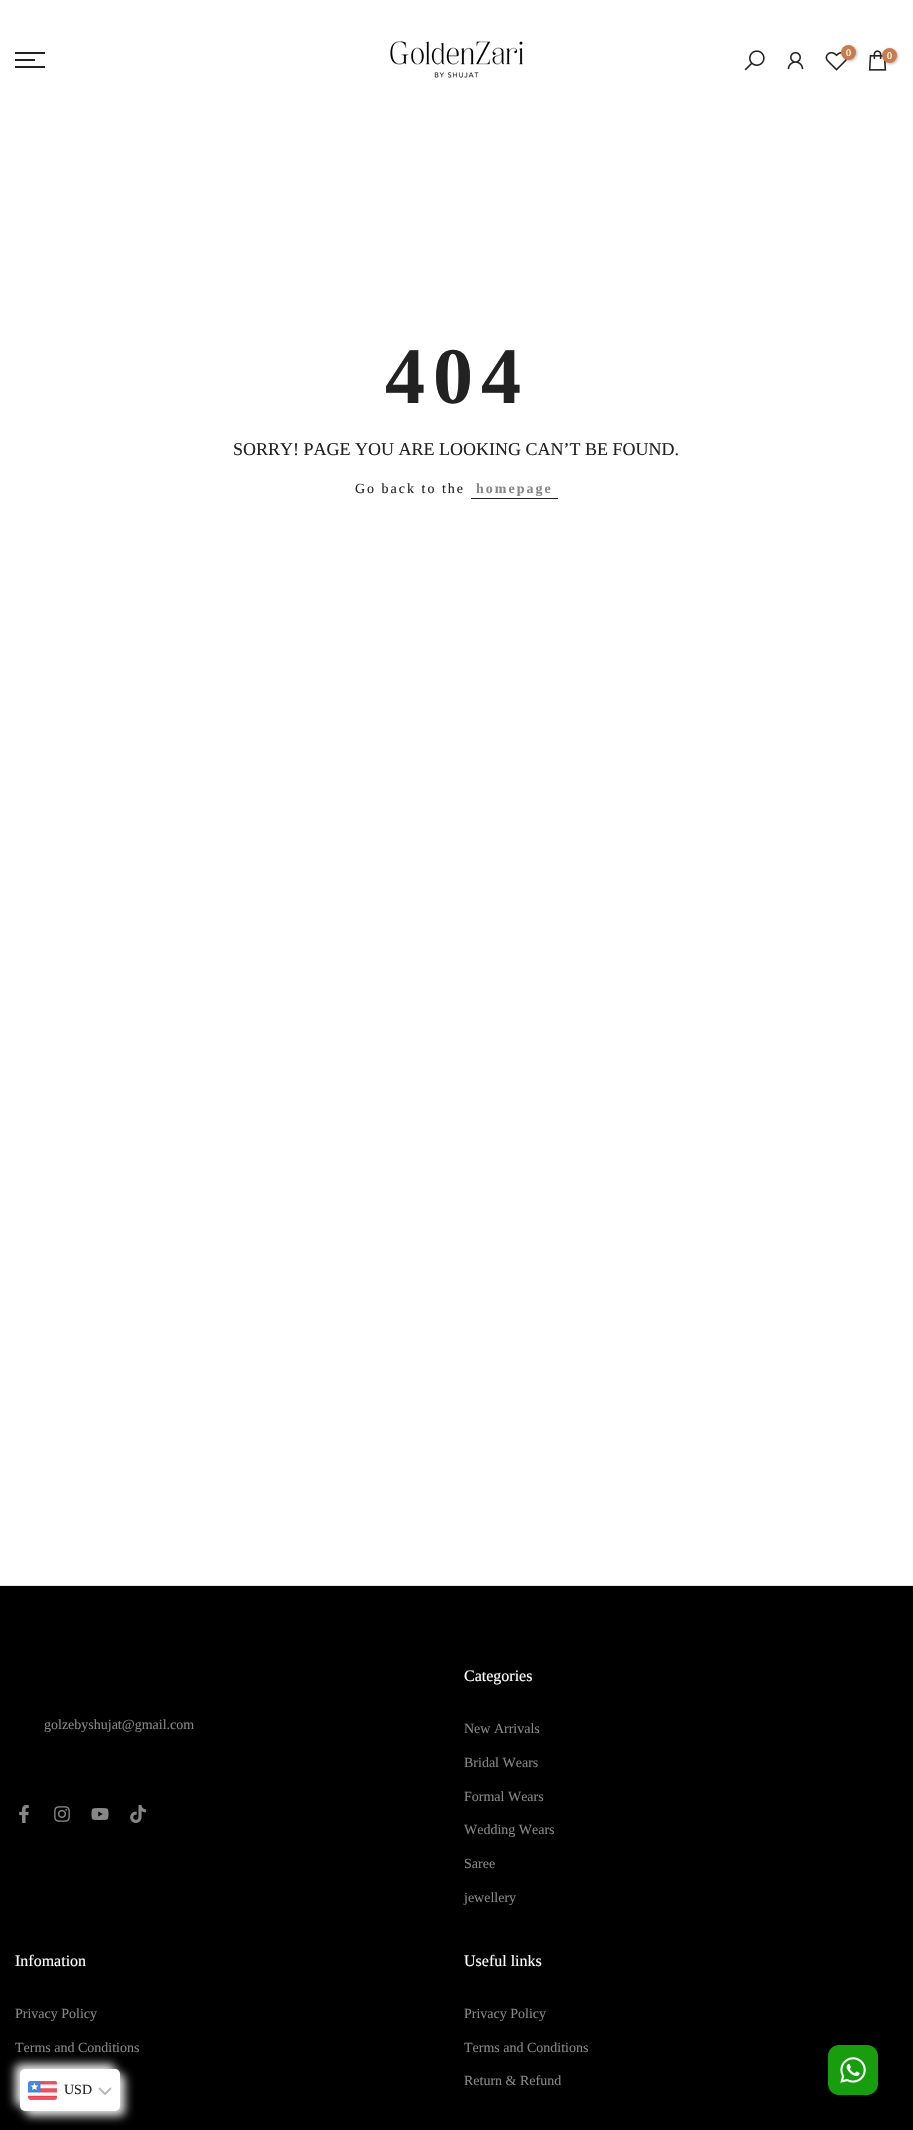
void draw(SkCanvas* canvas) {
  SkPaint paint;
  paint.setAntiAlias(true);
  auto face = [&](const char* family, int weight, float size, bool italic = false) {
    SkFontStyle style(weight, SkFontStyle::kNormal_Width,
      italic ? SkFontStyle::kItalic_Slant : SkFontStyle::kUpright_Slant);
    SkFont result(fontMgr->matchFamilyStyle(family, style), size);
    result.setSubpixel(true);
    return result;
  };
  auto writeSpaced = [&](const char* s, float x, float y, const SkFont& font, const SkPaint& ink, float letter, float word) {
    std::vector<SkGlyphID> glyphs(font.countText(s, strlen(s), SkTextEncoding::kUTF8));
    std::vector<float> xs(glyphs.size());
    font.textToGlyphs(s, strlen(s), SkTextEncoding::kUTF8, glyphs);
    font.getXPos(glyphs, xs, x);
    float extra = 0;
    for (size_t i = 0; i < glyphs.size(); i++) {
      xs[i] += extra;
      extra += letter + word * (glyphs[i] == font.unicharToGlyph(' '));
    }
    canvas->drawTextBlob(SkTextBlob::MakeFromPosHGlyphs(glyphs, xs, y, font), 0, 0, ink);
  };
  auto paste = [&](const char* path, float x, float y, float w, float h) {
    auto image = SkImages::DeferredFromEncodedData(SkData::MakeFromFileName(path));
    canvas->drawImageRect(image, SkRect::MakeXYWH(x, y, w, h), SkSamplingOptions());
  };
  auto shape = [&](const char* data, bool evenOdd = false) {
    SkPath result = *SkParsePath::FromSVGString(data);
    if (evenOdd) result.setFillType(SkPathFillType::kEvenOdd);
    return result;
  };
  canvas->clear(0xffffffff);
  {
    const struct { float x, y, w, h; SkColor color; } items[] = {
      {15, 52, 30, 2, 0xff222222},
      {15, 59, 20, 2, 0xff222222},
      {15, 66, 30, 2, 0xff222222},
    };
    for (auto [x, y, w, h, color] : items) {
      paint.setColor(color);
      canvas->drawRect(SkRect::MakeXYWH(x, y, w, h), paint);
    }
  }
  paste("img/1.png", 390, 41, 133, 37);
  paste("img/2.png", 744, 50, 21, 21);
  paste("img/3.png", 787, 51, 17, 19);
  paste("img/4.png", 825, 51, 23, 20);
  paint.setColor(0x4d000000);
  paint.setMaskFilter(SkMaskFilter::MakeBlur(kNormal_SkBlurStyle, 1.5f));
  canvas->drawRoundRect(SkRect::MakeXYWH(842, 46, 15, 15), 7.5f, 7.5f, paint);
  paint.setMaskFilter(nullptr);
  paint.setColor(0xffc67d4e);
  canvas->drawCircle(848.5f, 52.5f, 7.5f, paint);
  paste("img/5.png", 868, 50, 19, 21);
  paint.setColor(0x4d000000);
  paint.setMaskFilter(SkMaskFilter::MakeBlur(kNormal_SkBlurStyle, 1.5f));
  canvas->drawRoundRect(SkRect::MakeXYWH(883, 49, 15, 15), 7.5f, 7.5f, paint);
  paint.setMaskFilter(nullptr);
  paint.setColor(0xffc67d4e);
  canvas->drawCircle(889.5f, 55.5f, 7.5f, paint);
  {
    const struct { float x, y, w, h; SkColor color; } items[] = {
      {471, 498, 87, 1, 0xff222222},
      {0, 1586, 913, 544, 0xff000000},
      {0, 1585, 913, 1, 0xffe6e6e6},
    };
    for (auto [x, y, w, h, color] : items) {
      paint.setColor(color);
      canvas->drawRect(SkRect::MakeXYWH(x, y, w, h), paint);
    }
  }
  paste("img/6.png", 19, 1805, 10, 18);
  paste("img/7.png", 54, 1806, 16, 16);
  paste("img/8.png", 91, 1808, 18, 12);
  paste("img/9.png", 130, 1805, 16, 18);
  paint.setColor(0xffe8e8e8);
  paint.setMaskFilter(SkMaskFilter::MakeBlur(kNormal_SkBlurStyle, 5));
  canvas->drawRoundRect(SkRect::MakeXYWH(15, 2064, 100, 42), 5, 5, paint);
  paint.setMaskFilter(nullptr);
  paint.setMaskFilter(SkMaskFilter::MakeBlur(kNormal_SkBlurStyle, 5));
  canvas->drawRoundRect(SkRect::MakeXYWH(25, 2074, 100, 42), 5, 5, paint);
  paint.setMaskFilter(nullptr);
  paint.setColor(0xffffffff);
  canvas->drawRoundRect(SkRect::MakeXYWH(20, 2069, 100, 42), 5, 5, paint);
  paste("img/10.png", 28, 2081, 29, 19);
  paint.setStroke(true);
  paint.setStrokeWidth(1.8f);
  paint.setStrokeCap(SkPaint::kRound_Cap);
  paint.setStrokeJoin(SkPaint::kRound_Join);
  paint.setColor(0xffb7b7b7);
  canvas->drawPath(shape("M99.5 2088.5L105 2094L110.5 2088.5"), paint);
  paste("img/11.png", 828, 2045, 50, 50);
  auto f0 = face("Liberation Serif", 400, 10);
  paint.setStroke(false);
  paint.setColor(0xffffffff);
  canvas->drawString("0", 846, 56, f0, paint);
  canvas->drawString("0", 887, 59, f0, paint);
  auto f1 = face("Liberation Serif", 700, 80);
  paint.setColor(0xff222222);
  writeSpaced("404", 385, 403, f1, paint, 8, 0);
  auto f2 = face("Liberation Serif", 400, 18);
  canvas->drawString("SORRY! PAGE YOU ARE LOOKING CAN’T BE FOUND.", 233, 455, f2, paint);
  auto f3 = face("Liberation Serif", 400, 14);
  writeSpaced("Go back to the", 355, 493, f3, paint, 2, 0);
  auto f4 = face("Liberation Serif", 700, 14);
  paint.setColor(0xff878787);
  writeSpaced("homepage", 476, 493, f4, paint, 2, 0);
  canvas->drawString("golzebyshujat@gmail.com", 44, 1729, f3, paint);
  auto f5 = face("Liberation Serif", 400, 16);
  paint.setColor(0xffffffff);
  canvas->drawString("Categories", 464, 1681, f5, paint);
  paint.setColor(0xff878787);
  {
    const struct { const char* s; float x, y; } items[] = {
      {"New Arrivals", 464, 1733},
      {"Bridal Wears", 464, 1767},
      {"Formal Wears", 464, 1801},
      {"Wedding Wears", 464, 1834},
      {"Saree", 464, 1868},
      {"jewellery", 464, 1902},
    };
    for (auto [s, x, y] : items) {
      canvas->drawString(s, x, y, f3, paint);
    }
  }
  paint.setColor(0xffffffff);
  canvas->drawString("Infomation", 15, 1966, f5, paint);
  paint.setColor(0xff878787);
  canvas->drawString("Privacy Policy", 15, 2018, f3, paint);
  canvas->drawString("Terms and Conditions", 15, 2052, f3, paint);
  paint.setColor(0xffffffff);
  canvas->drawString("Useful links", 464, 1966, f5, paint);
  paint.setColor(0xff878787);
  {
    const struct { const char* s; float x, y; } items[] = {
      {"Privacy Policy", 464, 2018},
      {"Terms and Conditions", 464, 2052},
      {"Return & Refund", 464, 2085},
    };
    for (auto [s, x, y] : items) {
      canvas->drawString(s, x, y, f3, paint);
    }
  }
  paint.setColor(0xff222222);
  canvas->drawString("USD", 64, 2094, f3, paint);
}
